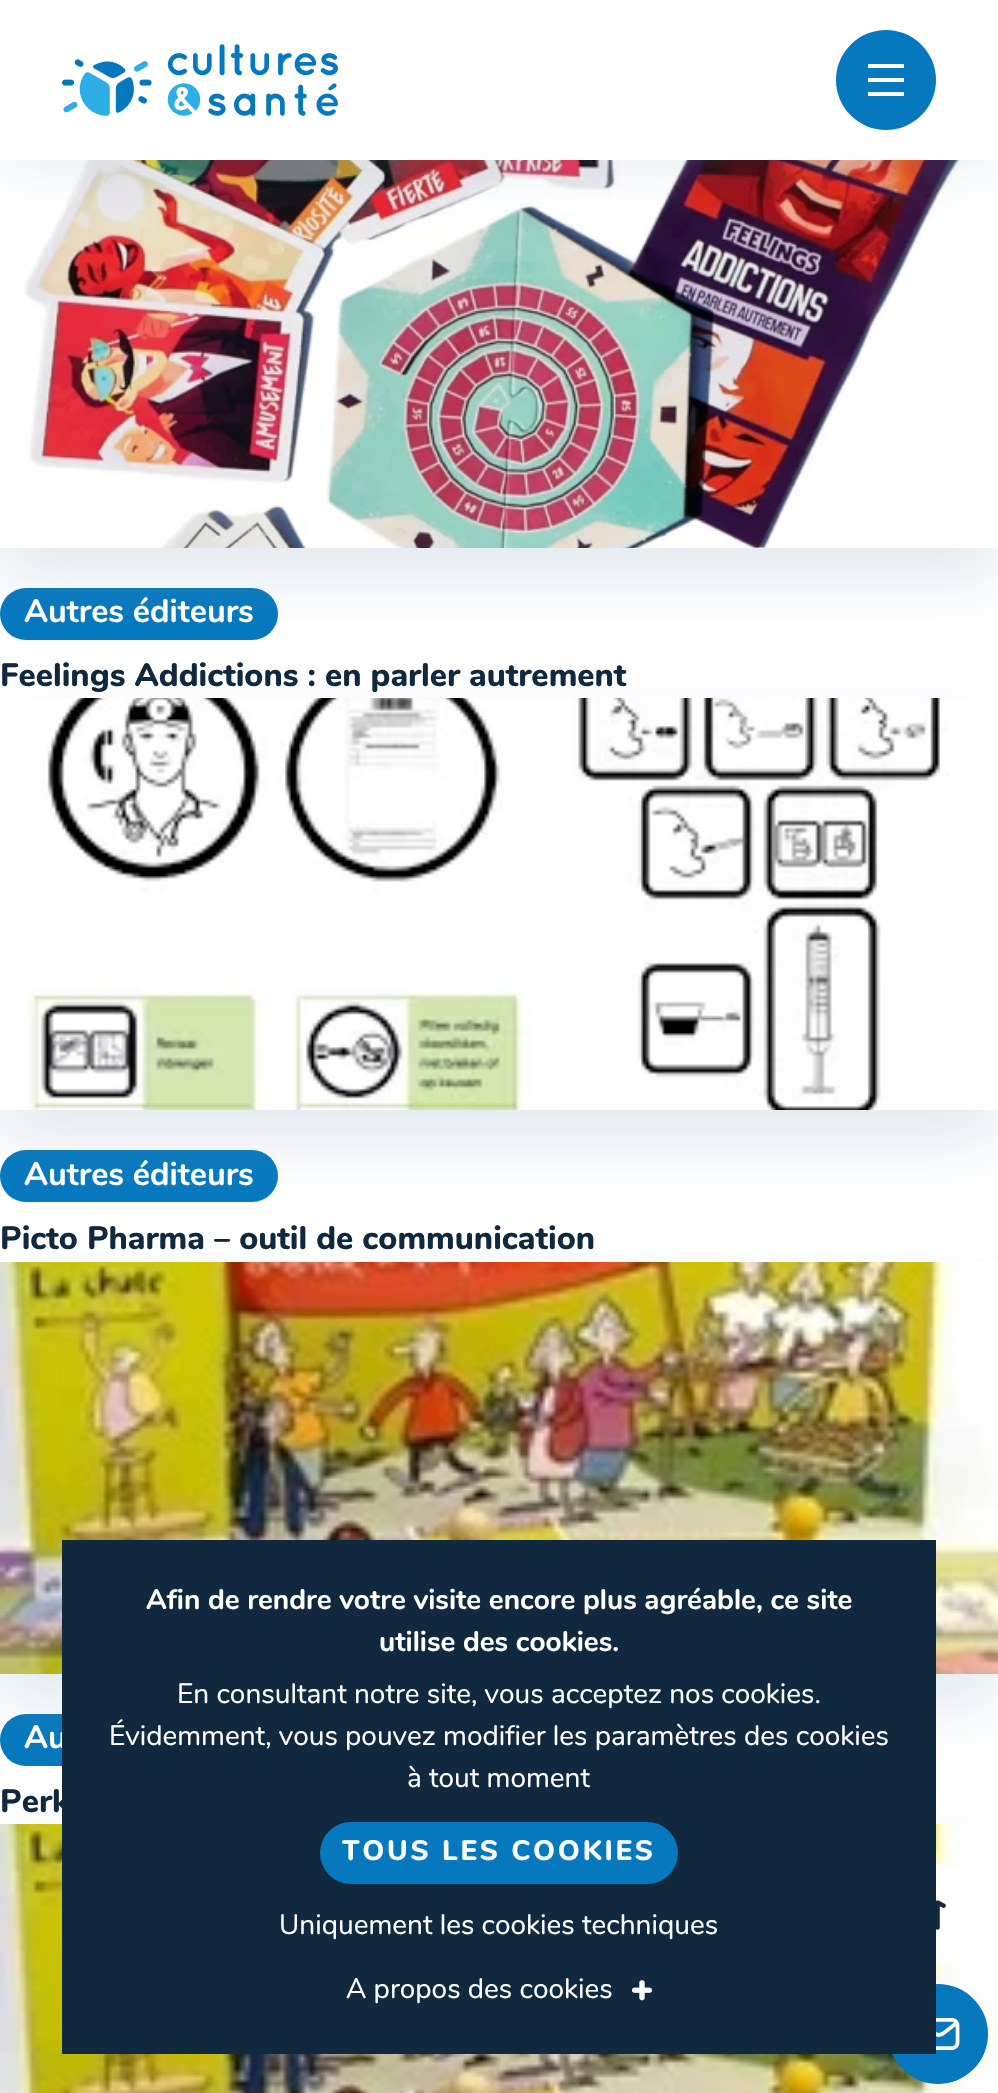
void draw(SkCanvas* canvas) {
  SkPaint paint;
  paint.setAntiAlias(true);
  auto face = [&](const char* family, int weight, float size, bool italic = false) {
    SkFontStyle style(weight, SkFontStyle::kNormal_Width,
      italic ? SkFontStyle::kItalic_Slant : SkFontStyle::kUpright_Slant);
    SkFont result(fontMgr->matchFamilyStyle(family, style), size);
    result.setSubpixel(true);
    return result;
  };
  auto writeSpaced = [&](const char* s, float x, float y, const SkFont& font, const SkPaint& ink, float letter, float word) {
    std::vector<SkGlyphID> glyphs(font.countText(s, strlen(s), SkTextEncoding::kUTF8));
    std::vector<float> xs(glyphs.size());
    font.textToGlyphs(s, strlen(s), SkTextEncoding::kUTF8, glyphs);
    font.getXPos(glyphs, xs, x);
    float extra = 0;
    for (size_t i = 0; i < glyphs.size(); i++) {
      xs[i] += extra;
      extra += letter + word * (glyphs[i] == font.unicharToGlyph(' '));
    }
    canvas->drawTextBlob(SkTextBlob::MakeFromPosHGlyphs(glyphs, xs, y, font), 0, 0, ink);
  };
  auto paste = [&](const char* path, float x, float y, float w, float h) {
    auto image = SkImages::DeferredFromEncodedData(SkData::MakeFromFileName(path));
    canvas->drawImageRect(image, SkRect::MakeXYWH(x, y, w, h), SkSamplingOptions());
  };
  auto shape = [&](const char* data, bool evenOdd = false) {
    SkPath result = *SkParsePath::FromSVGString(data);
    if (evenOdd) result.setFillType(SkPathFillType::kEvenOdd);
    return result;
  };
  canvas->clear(0xffffffff);
  paint.setColor(0xff0578be);
  canvas->drawRoundRect(SkRect::MakeXYWH(0, 588, 278, 52), 26, 26, paint);
  canvas->save();
  canvas->clipRect(SkRect::MakeXYWH(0, 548, 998, 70));
  paint.setColor(0x337090b0);
  paint.setMaskFilter(SkMaskFilter::MakeBlur(kNormal_SkBlurStyle, 30));
  canvas->drawRect(SkRect::MakeXYWH(0, 168, 998, 412), paint);
  paint.setMaskFilter(nullptr);
  canvas->restore();
  paste("img/2.png", 23, 160, 961, 388);
  paint.setColor(0x1a7090b0);
  paint.setMaskFilter(SkMaskFilter::MakeBlur(kNormal_SkBlurStyle, 20));
  canvas->drawRect(SkRect::MakeXYWH(0, 20, 998, 160), paint);
  paint.setMaskFilter(nullptr);
  paint.setColor(0xffffffff);
  canvas->drawRect(SkRect::MakeXYWH(0, 2, 998, 158), paint);
  paste("img/1.png", 62, 44, 276, 72);
  paint.setColor(0xff0578be);
  canvas->drawCircle(886, 80, 50, paint);
  {
    const struct { float x, y, w, h; SkColor color; } items[] = {
      {868, 78, 36, 4, 0xffffffff},
      {868, 64, 36, 4, 0xffffffff},
      {868, 92, 36, 4, 0xffffffff},
    };
    for (auto [x, y, w, h, color] : items) {
      paint.setColor(color);
      canvas->drawRect(SkRect::MakeXYWH(x, y, w, h), paint);
    }
  }
  paint.setColor(0xff0578be);
  canvas->drawRoundRect(SkRect::MakeXYWH(0, 1150, 278, 52), 26, 26, paint);
  canvas->save();
  canvas->clipPath(shape("M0 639H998V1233H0ZM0 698H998V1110H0Z", true), true);
  paint.setColor(0x337090b0);
  paint.setMaskFilter(SkMaskFilter::MakeBlur(kNormal_SkBlurStyle, 30));
  canvas->drawRect(SkRect::MakeXYWH(0, 730, 998, 412), paint);
  paint.setMaskFilter(nullptr);
  canvas->restore();
  paste("img/3.png", 26, 698, 923, 412);
  paint.setColor(0xff0578be);
  canvas->drawRoundRect(SkRect::MakeXYWH(0, 1714, 278, 52), 26, 26, paint);
  paint.setColor(0x337090b0);
  paint.setMaskFilter(SkMaskFilter::MakeBlur(kNormal_SkBlurStyle, 30));
  canvas->drawRect(SkRect::MakeXYWH(0, 1294, 998, 412), paint);
  paint.setMaskFilter(nullptr);
  paste("img/4.png", 0, 1262, 998, 412);
  paint.setMaskFilter(SkMaskFilter::MakeBlur(kNormal_SkBlurStyle, 30));
  canvas->drawRect(SkRect::MakeXYWH(0, 1856, 998, 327), paint);
  paint.setMaskFilter(nullptr);
  paste("img/5.png", 0, 1824, 998, 269);
  paint.setColor(0xffffffff);
  canvas->drawCircle(938, 1914, 50, paint);
  paste("img/6.png", 936, 1900, 10, 30);
  paint.setColor(0xff0578be);
  canvas->drawCircle(938, 2034, 50, paint);
  paste("img/7.png", 936, 2018, 24, 32);
  auto f0 = face("Nunito", 700, 32.4f);
  paint.setColor(0xffffffff);
  canvas->drawString("Autres éditeurs", 24, 622, f0, paint);
  auto f1 = face("Nunito", 800, 32.4f);
  paint.setColor(0xff10293e);
  canvas->drawString("Feelings Addictions : en parler autrement", 0, 686, f1, paint);
  paint.setColor(0xffffffff);
  canvas->drawString("Autres éditeurs", 24, 1185, f0, paint);
  paint.setColor(0xff10293e);
  canvas->drawString("Picto Pharma – outil de communication", 0, 1249, f1, paint);
  paint.setColor(0xffffffff);
  canvas->drawString("Au", 24, 1748, f0, paint);
  paint.setColor(0xff10293e);
  canvas->drawString("Perk", 0, 1812, f1, paint);
  canvas->drawRect(SkRect::MakeXYWH(62, 1540, 874, 514), paint);
  auto f2 = face("Nunito", 700, 28);
  paint.setColor(0xffffffff);
  canvas->drawString("Afin de rendre votre visite encore plus agréable, ce site", 146, 1609, f2, paint);
  canvas->drawString("utilise des cookies.", 379, 1651, f2, paint);
  auto f3 = face("Nunito", 400, 28);
  {
    const struct { const char* s; float x, y; } items[] = {
      {"En consultant notre site, vous acceptez nos cookies.", 177, 1703},
      {"Évidemment, vous pouvez modifier les paramètres des cookies", 109, 1745},
      {"à tout moment", 407, 1787},
    };
    for (auto [s, x, y] : items) {
      canvas->drawString(s, x, y, f3, paint);
    }
  }
  paint.setColor(0xff0578be);
  canvas->drawRoundRect(SkRect::MakeXYWH(320, 1822, 358, 62), 31, 31, paint);
  auto f4 = face("Nunito", 800, 28);
  paint.setColor(0xffffffff);
  writeSpaced("TOUS LES COOKIES", 342, 1860, f4, paint, 2.75f, 0);
  canvas->drawString("Uniquement les cookies techniques", 279, 1934, f3, paint);
  canvas->drawString("A propos des cookies", 346, 1998, f3, paint);
  auto f5 = face("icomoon", 400, 20);
  canvas->drawString("+", 632, 1999, f5, paint);
}
